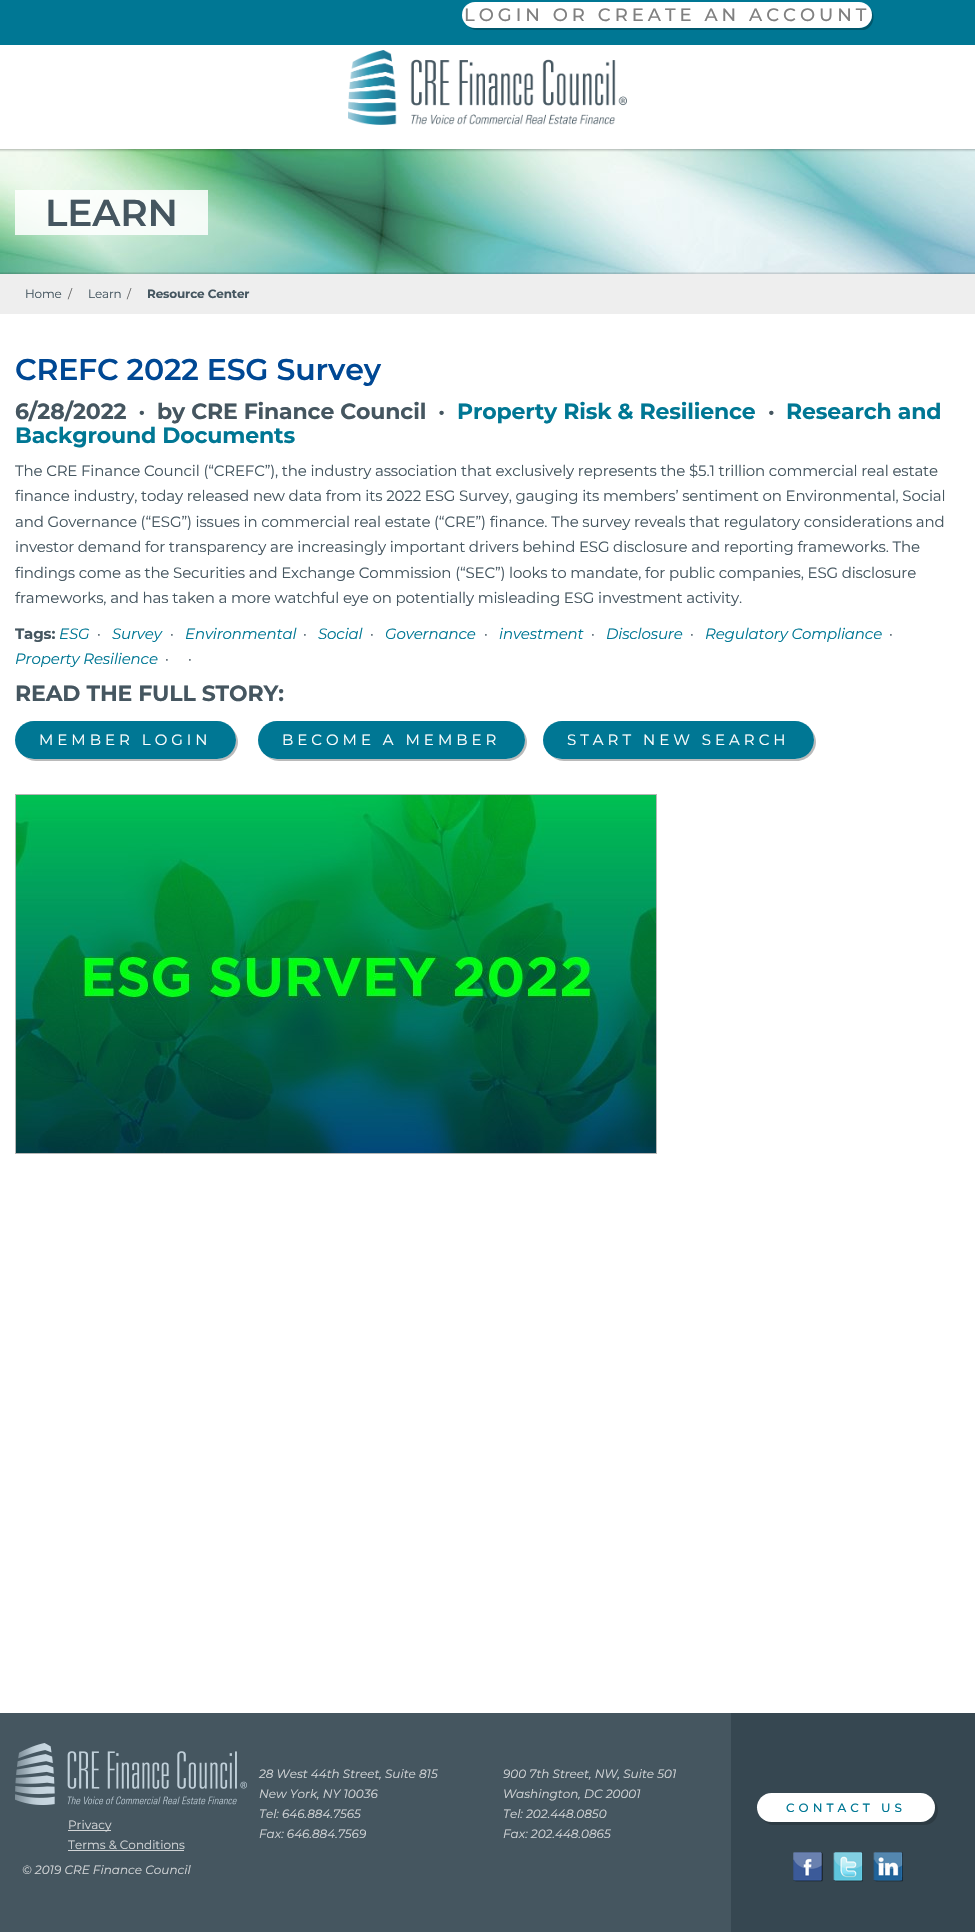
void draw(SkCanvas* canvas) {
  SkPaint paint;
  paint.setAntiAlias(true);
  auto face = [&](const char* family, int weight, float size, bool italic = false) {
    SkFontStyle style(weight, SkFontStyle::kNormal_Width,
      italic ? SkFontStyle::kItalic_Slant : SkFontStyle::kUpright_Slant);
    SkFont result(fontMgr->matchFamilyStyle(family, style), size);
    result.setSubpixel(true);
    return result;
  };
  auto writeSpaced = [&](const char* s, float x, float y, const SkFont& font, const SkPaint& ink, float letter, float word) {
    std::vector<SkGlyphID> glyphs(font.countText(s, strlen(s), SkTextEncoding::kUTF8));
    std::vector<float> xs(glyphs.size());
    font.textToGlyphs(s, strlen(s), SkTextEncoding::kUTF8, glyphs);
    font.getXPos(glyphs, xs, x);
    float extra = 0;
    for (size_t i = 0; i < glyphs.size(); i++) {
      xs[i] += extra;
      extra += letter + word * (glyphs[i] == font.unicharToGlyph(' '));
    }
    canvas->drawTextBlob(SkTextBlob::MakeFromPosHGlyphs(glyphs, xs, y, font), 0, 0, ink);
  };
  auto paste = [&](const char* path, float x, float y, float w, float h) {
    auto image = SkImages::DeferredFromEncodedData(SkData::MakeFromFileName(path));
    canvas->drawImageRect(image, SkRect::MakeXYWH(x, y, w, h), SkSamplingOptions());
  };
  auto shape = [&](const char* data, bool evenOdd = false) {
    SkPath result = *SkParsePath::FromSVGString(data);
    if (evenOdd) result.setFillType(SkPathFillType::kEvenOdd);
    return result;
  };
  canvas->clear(0xffffffff);
  paint.setColor(0xff007794);
  canvas->drawRect(SkRect::MakeXYWH(0, 0, 975, 45), paint);
  paint.setColor(0xff00576c);
  canvas->drawPath(shape("M467 25C469 28 473 30 477 30H864C874 28 877 14 869 7C875 14 871 26 862 28H474C471 28 469 27 467 25Z"), paint);
  paint.setColor(0xffffffff);
  canvas->drawRoundRect(SkRect::MakeXYWH(462, 2, 410, 26), 13, 13, paint);
  paste("img/1.png", 348, 50, 279, 75);
  paste("img/2.png", 0, 149, 975, 125);
  paint.setColor(0xd9ffffff);
  canvas->drawRect(SkRect::MakeXYWH(15, 190, 193, 45), paint);
  paint.setColor(0xffeeeeee);
  canvas->drawRect(SkRect::MakeXYWH(0, 274, 975, 40), paint);
  paint.setColor(0xffbababa);
  canvas->drawPath(shape("M22 754C25 758 30 761 36 761H219C229 761 238 752 238 742C238 736 235 731 231 728C234 731 236 735 236 740C236 750 227 759 217 759H34C29 759 25 757 22 754Z"), paint);
  paint.setColor(0xff007794);
  canvas->drawRoundRect(SkRect::MakeXYWH(15, 721, 221, 38), 19, 19, paint);
  paint.setColor(0xffbababa);
  canvas->drawPath(shape("M265 754C268 758 273 761 279 761H508C518 761 527 752 527 742C527 736 524 731 520 728C523 731 525 735 525 740C525 750 516 759 506 759H277C272 759 268 757 265 754Z"), paint);
  paint.setColor(0xff007794);
  canvas->drawRoundRect(SkRect::MakeXYWH(258, 721, 267, 38), 19, 19, paint);
  paint.setColor(0xffbababa);
  canvas->drawPath(shape("M550 754C553 758 558 761 564 761H797C807 761 816 752 816 742C816 736 813 731 809 728C812 731 814 735 814 740C814 750 805 759 795 759H562C557 759 553 757 550 754Z"), paint);
  paint.setColor(0xff007794);
  canvas->drawRoundRect(SkRect::MakeXYWH(543, 721, 271, 38), 19, 19, paint);
  paint.setStroke(true);
  paint.setStrokeWidth(1);
  paint.setColor(0xffb6b6b6);
  canvas->drawRect(SkRect::MakeXYWH(15.5f, 794.5f, 641, 359), paint);
  paste("img/3.png", 16, 795, 640, 358);
  paint.setStroke(false);
  paint.setColor(0xff455660);
  canvas->drawRect(SkRect::MakeXYWH(0, 1713, 731, 219), paint);
  paste("img/4.png", 15, 1743, 232, 62);
  {
    const struct { float x, y, w, h; SkColor color; } items[] = {
      {68, 1830, 43, 1, 0xffd2d5d7},
      {68, 1850, 116, 1, 0xffd2d5d7},
      {731, 1713, 244, 219, 0xff364751},
    };
    for (auto [x, y, w, h, color] : items) {
      paint.setColor(color);
      canvas->drawRect(SkRect::MakeXYWH(x, y, w, h), paint);
    }
  }
  paint.setColor(0xff2d3b43);
  canvas->drawPath(shape("M763 1819C765 1823 770 1825 774 1825H924C932 1825 938 1819 938 1810C938 1806 936 1801 932 1799C934 1801 935 1804 935 1808C935 1816 929 1822 920 1822H772C768 1822 765 1821 763 1819Z"), paint);
  paint.setColor(0xffffffff);
  canvas->drawRoundRect(SkRect::MakeXYWH(757, 1793, 178, 29), 14.5f, 14.5f, paint);
  paste("img/5.png", 793, 1852, 30, 30);
  paste("img/6.png", 833, 1852, 30, 30);
  paste("img/7.png", 873, 1852, 30, 30);
  auto f0 = face("Montserrat", 500, 18);
  paint.setColor(0xff808080);
  writeSpaced("LOGIN OR CREATE AN ACCOUNT", 464, 21, f0, paint, 4, 0);
  auto f1 = face("Montserrat", 600, 37.5f);
  paint.setColor(0xff455660);
  writeSpaced("LEARN", 45, 226, f1, paint, -0.15f, 0);
  auto f2 = face("Montserrat", 400, 12);
  writeSpaced("Home", 25, 298, f2, paint, -0.15f, 0);
  paint.setColor(0xff666666);
  writeSpaced("/", 68, 298, f2, paint, -0.15f, 0);
  paint.setColor(0xff455660);
  writeSpaced("Learn", 88, 298, f2, paint, -0.15f, 0);
  paint.setColor(0xff666666);
  writeSpaced("/", 127, 298, f2, paint, -0.15f, 0);
  auto f3 = face("Montserrat", 700, 12);
  paint.setColor(0xff455660);
  writeSpaced("Resource Center", 147, 298, f3, paint, -0.15f, 0);
  auto f4 = face("Montserrat", 600, 30);
  paint.setColor(0xff004894);
  writeSpaced("CREFC 2022 ESG Survey", 15, 380, f4, paint, -0.15f, 0);
  auto f5 = face("Montserrat", 700, 22);
  paint.setColor(0xff455660);
  writeSpaced("6/28/2022  ·  by CRE Finance Council  ·", 15, 419, f5, paint, -0.15f, 0);
  paint.setColor(0xff007794);
  writeSpaced("Property Risk & Resilience", 457, 419, f5, paint, -0.15f, 0);
  paint.setColor(0xff455660);
  writeSpaced("·", 768, 419, f5, paint, -0.15f, 0);
  paint.setColor(0xff007794);
  writeSpaced("Research and", 786, 419, f5, paint, -0.15f, 0);
  writeSpaced("Background Documents", 15, 443, f5, paint, -0.15f, 0);
  auto f6 = face("Montserrat", 400, 15);
  paint.setColor(0xff455660);
  {
    const struct { const char* s; float x, y; } items[] = {
      {"The CRE Finance Council (“CREFC”), the industry association that exclusively represents the $5.1 trillion commercial real estate", 15, 476},
      {"finance industry, today released new data from its 2022 ESG Survey, gauging its members’ sentiment on Environmental, Social", 15, 501},
      {"and Governance (“ESG”) issues in commercial real estate (“CRE”) finance. The survey reveals that regulatory considerations and", 15, 527},
      {"investor demand for transparency are increasingly important drivers behind ESG disclosure and reporting frameworks. The", 15, 552},
      {"findings come as the Securities and Exchange Commission (“SEC”) looks to mandate, for public companies, ESG disclosure", 15, 578},
      {"frameworks, and has taken a more watchful eye on potentially misleading ESG investment activity.", 15, 603},
    };
    for (auto [s, x, y] : items) {
      writeSpaced(s, x, y, f6, paint, -0.15f, 0);
    }
  }
  auto f7 = face("Montserrat", 700, 15);
  writeSpaced("Tags:", 15, 639, f7, paint, -0.15f, 0);
  auto f8 = face("Montserrat", 400, 15, true);
  paint.setColor(0xff007794);
  writeSpaced("ESG", 59, 639, f8, paint, -0.15f, 0);
  paint.setColor(0xff455660);
  writeSpaced("·", 97, 639, f6, paint, -0.15f, 0);
  paint.setColor(0xff007794);
  writeSpaced("Survey", 112, 639, f8, paint, -0.15f, 0);
  paint.setColor(0xff455660);
  writeSpaced("·", 170, 639, f6, paint, -0.15f, 0);
  paint.setColor(0xff007794);
  writeSpaced("Environmental", 185, 639, f8, paint, -0.15f, 0);
  paint.setColor(0xff455660);
  writeSpaced("·", 303, 639, f6, paint, -0.15f, 0);
  paint.setColor(0xff007794);
  writeSpaced("Social", 318, 639, f8, paint, -0.15f, 0);
  paint.setColor(0xff455660);
  writeSpaced("·", 370, 639, f6, paint, -0.15f, 0);
  paint.setColor(0xff007794);
  writeSpaced("Governance", 385, 639, f8, paint, -0.15f, 0);
  paint.setColor(0xff455660);
  writeSpaced("·", 484, 639, f6, paint, -0.15f, 0);
  paint.setColor(0xff007794);
  writeSpaced("investment", 499, 639, f8, paint, -0.15f, 0);
  paint.setColor(0xff455660);
  writeSpaced("·", 591, 639, f6, paint, -0.15f, 0);
  paint.setColor(0xff007794);
  writeSpaced("Disclosure", 606, 639, f8, paint, -0.15f, 0);
  paint.setColor(0xff455660);
  writeSpaced("·", 690, 639, f6, paint, -0.15f, 0);
  paint.setColor(0xff007794);
  writeSpaced("Regulatory Compliance", 705, 639, f8, paint, -0.15f, 0);
  paint.setColor(0xff455660);
  writeSpaced("·", 889, 639, f6, paint, -0.15f, 0);
  paint.setColor(0xff007794);
  writeSpaced("Property Resilience", 15, 664, f8, paint, -0.15f, 0);
  paint.setColor(0xff455660);
  writeSpaced("·", 165, 664, f6, paint, -0.15f, 0);
  writeSpaced("·", 188, 664, f6, paint, -0.15f, 0);
  writeSpaced("READ THE FULL STORY:", 15, 701, f5, paint, -0.15f, 0);
  paint.setColor(0xffffffff);
  {
    const struct { const char* s; float x, y; } items[] = {
      {"MEMBER LOGIN", 39, 745},
      {"BECOME A MEMBER", 282, 745},
      {"START NEW SEARCH", 567, 745},
    };
    for (auto [s, x, y] : items) {
      writeSpaced(s, x, y, f6, paint, 4, 0);
    }
  }
  auto f9 = face("Montserrat", 400, 12, true);
  paint.setColor(0xffd2d5d7);
  {
    const struct { const char* s; float x, y; } items[] = {
      {"28 West 44th Street, Suite 815", 259, 1778},
      {"New York, NY 10036", 259, 1798},
      {"Tel: 646.884.7565", 259, 1818},
      {"Fax: 646.884.7569", 259, 1838},
      {"900 7th Street, NW, Suite 501", 503, 1778},
      {"Washington, DC 20001", 503, 1798},
      {"Tel: 202.448.0850", 503, 1818},
      {"Fax: 202.448.0865", 503, 1838},
    };
    for (auto [s, x, y] : items) {
      canvas->drawString(s, x, y, f9, paint);
    }
  }
  canvas->drawString("Privacy", 68, 1829, f2, paint);
  canvas->drawString("Terms & Conditions", 68, 1849, f2, paint);
  canvas->drawString("© 2019 CRE Finance Council", 22, 1874, f9, paint);
  auto f10 = face("Montserrat", 500, 12);
  paint.setColor(0xff007794);
  writeSpaced("CONTACT US", 786, 1812, f10, paint, 4, 0);
}
